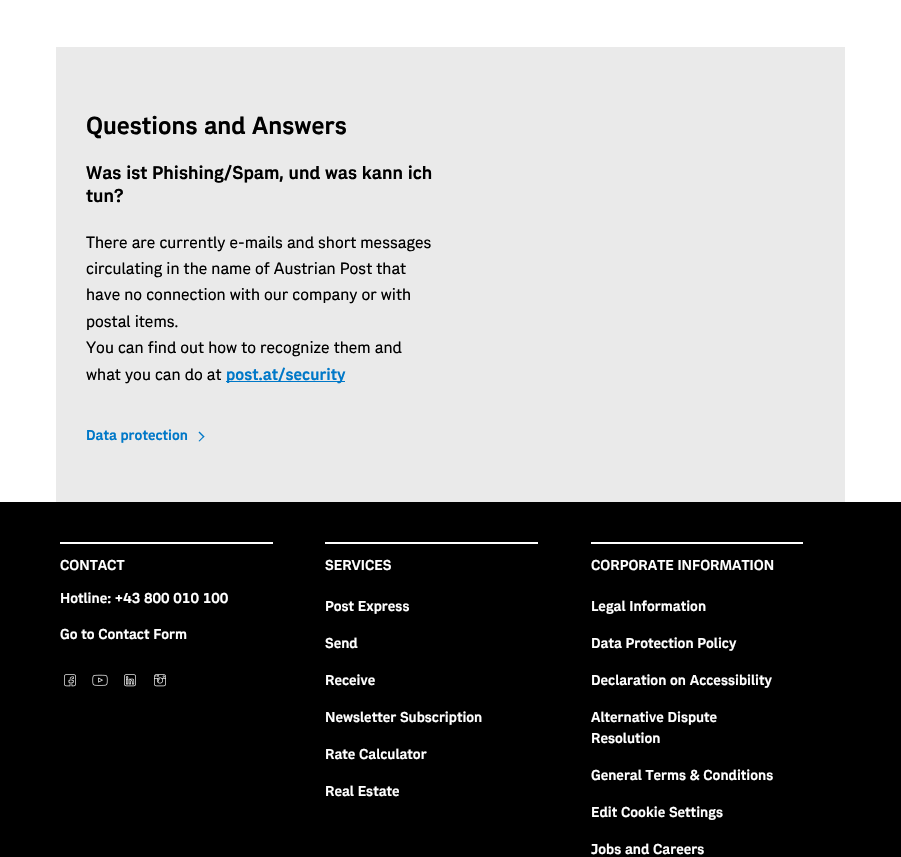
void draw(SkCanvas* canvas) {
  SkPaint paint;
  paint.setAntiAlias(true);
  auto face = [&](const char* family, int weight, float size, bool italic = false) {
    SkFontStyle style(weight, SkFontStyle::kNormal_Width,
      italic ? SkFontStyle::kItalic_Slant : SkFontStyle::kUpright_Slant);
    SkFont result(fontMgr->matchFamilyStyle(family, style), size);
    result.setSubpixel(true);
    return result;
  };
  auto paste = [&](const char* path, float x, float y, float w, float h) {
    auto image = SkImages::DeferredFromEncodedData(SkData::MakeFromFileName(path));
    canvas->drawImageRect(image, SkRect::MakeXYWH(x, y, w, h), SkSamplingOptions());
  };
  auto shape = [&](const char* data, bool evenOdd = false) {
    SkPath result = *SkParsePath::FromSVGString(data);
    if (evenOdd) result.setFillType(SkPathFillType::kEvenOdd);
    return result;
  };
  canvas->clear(0xffffffff);
  paint.setColor(0xffeaeaea);
  canvas->drawRect(SkRect::MakeXYWH(56, 47, 789, 455), paint);
  paint.setColor(0xff0078c8);
  canvas->drawRect(SkRect::MakeXYWH(226, 381, 119, 1), paint);
  canvas->drawPath(shape("M203.5 437.5L198.5 432.5L199.5 431.5L204.5 436.5Z"), paint);
  canvas->drawPath(shape("M199.5 441.5L198.5 441L203.5 436L204.5 436.5Z"), paint);
  paint.setColor(0xff000000);
  canvas->drawRect(SkRect::MakeXYWH(0, 502, 901, 355), paint);
  paint.setColor(0xffffffff);
  canvas->drawRect(SkRect::MakeXYWH(60, 542, 213, 2), paint);
  paste("img/1.png", 64, 674, 12, 13);
  paste("img/2.png", 92, 674, 16, 12);
  paste("img/3.png", 124, 674, 12, 13);
  paste("img/4.png", 154, 674, 12, 13);
  canvas->drawRect(SkRect::MakeXYWH(325, 542, 213, 2), paint);
  canvas->drawRect(SkRect::MakeXYWH(591, 542, 212, 2), paint);
  auto f0 = face("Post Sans", 700, 24);
  paint.setColor(0xff000000);
  canvas->drawString("Questions and Answers", 86, 134, f0, paint);
  auto f1 = face("Post Sans", 700, 18);
  canvas->drawString("Was ist Phishing/Spam, und was kann ich", 86, 179, f1, paint);
  canvas->drawString("tun?", 86, 202, f1, paint);
  auto f2 = face("Post Sans", 400, 16);
  {
    const struct { const char* s; float x, y; } items[] = {
      {"There are currently e-mails and short messages", 86, 248},
      {"circulating in the name of Austrian Post that", 86, 274},
      {"have no connection with our company or with", 86, 300},
      {"postal items.", 86, 327},
      {"You can find out how to recognize them and", 86, 353},
      {"what you can do at", 86, 380},
    };
    for (auto [s, x, y] : items) {
      canvas->drawString(s, x, y, f2, paint);
    }
  }
  auto f3 = face("Post Sans", 700, 16);
  paint.setColor(0xff0078c8);
  canvas->drawString("post.at/security", 226, 380, f3, paint);
  auto f4 = face("Post Sans", 700, 14);
  canvas->drawString("Data protection", 86, 440, f4, paint);
  paint.setColor(0xffffffff);
  {
    const struct { const char* s; float x, y; } items[] = {
      {"CONTACT", 60, 570},
      {"Hotline: +43 800 010 100", 60, 603},
      {"Go to Contact Form", 60, 639},
      {"SERVICES", 325, 570},
      {"Post Express", 325, 611},
      {"Send", 325, 648},
      {"Receive", 325, 685},
      {"Newsletter Subscription", 325, 722},
      {"Rate Calculator", 325, 759},
      {"Real Estate", 325, 796},
      {"CORPORATE INFORMATION", 591, 570},
      {"Legal Information", 591, 611},
      {"Data Protection Policy", 591, 648},
      {"Declaration on Accessibility", 591, 685},
      {"Alternative Dispute", 591, 722},
      {"Resolution", 591, 743},
      {"General Terms & Conditions", 591, 780},
      {"Edit Cookie Settings", 591, 817},
      {"Jobs and Careers", 591, 854},
    };
    for (auto [s, x, y] : items) {
      canvas->drawString(s, x, y, f4, paint);
    }
  }
}
